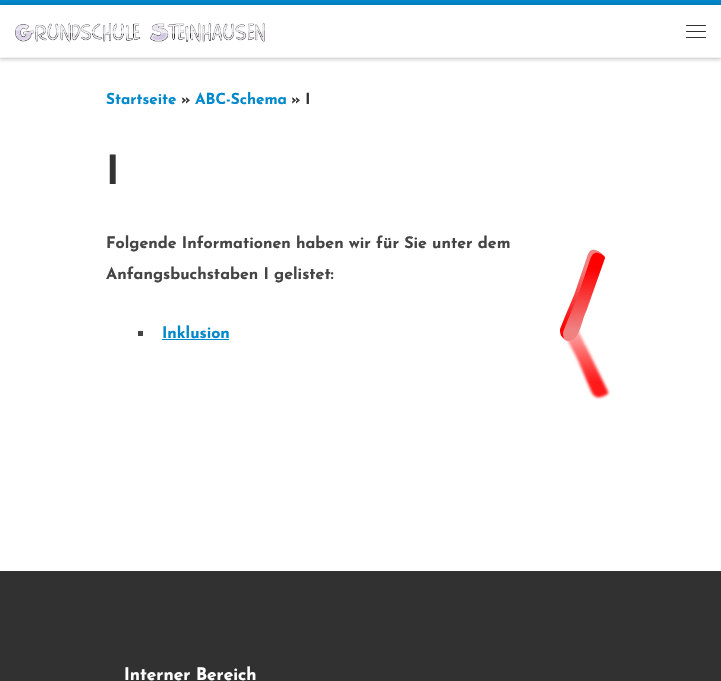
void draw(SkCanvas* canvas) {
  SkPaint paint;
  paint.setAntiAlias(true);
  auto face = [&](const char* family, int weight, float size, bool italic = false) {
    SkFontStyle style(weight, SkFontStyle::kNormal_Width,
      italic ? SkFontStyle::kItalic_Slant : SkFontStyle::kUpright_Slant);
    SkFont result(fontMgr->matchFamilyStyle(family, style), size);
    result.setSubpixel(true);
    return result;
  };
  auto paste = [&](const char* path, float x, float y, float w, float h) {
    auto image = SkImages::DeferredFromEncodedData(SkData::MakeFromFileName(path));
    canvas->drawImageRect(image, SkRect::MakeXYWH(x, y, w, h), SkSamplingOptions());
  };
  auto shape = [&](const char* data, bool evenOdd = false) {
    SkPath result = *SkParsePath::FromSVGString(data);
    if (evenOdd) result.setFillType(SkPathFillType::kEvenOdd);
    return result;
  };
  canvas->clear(0xffffffff);
  canvas->save();
  canvas->clipRect(SkRect::MakeXYWH(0, 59, 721, 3));
  paint.setColor(0x14666666);
  paint.setMaskFilter(SkMaskFilter::MakeBlur(kNormal_SkBlurStyle, 1));
  canvas->drawRect(SkRect::MakeXYWH(0, 2, 721, 59), paint);
  paint.setMaskFilter(nullptr);
  canvas->restore();
  paint.setColor(0xff0088cc);
  canvas->drawRect(SkRect::MakeXYWH(0, 0, 721, 5), paint);
  paint.setColor(0xffefefef);
  canvas->drawRect(SkRect::MakeXYWH(0, 58, 721, 1), paint);
  canvas->save();
  canvas->clipPath(shape("M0 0H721V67H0ZM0 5H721V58H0Z", true), true);
  paint.setColor(0x33000000);
  paint.setMaskFilter(SkMaskFilter::MakeBlur(kNormal_SkBlurStyle, 2.5f));
  canvas->drawRect(SkRect::MakeXYWH(0, 5, 721, 53), paint);
  paint.setMaskFilter(nullptr);
  canvas->restore();
  paste("img/1.png", 15, 23, 250, 19);
  paint.setColor(0xff313131);
  canvas->drawRoundRect(SkRect::MakeXYWH(686, 25, 20, 1), 0.5f, 0.5f, paint);
  canvas->drawRoundRect(SkRect::MakeXYWH(686, 31, 20, 1), 0.5f, 0.5f, paint);
  canvas->drawRoundRect(SkRect::MakeXYWH(686, 37, 20, 1), 0.5f, 0.5f, paint);
  paint.setColor(0xfff0f0f0);
  canvas->drawRect(SkRect::MakeXYWH(0, 57, 721, 1), paint);
  paste("img/2.png", 560, 249, 51, 151);
  {
    const struct { float x, y, w, h; SkColor color; } items[] = {
      {138, 331, 5, 5, 0xff444444},
      {162, 339, 67, 1, 0xff0088cc},
      {0, 571, 721, 110, 0xff313131},
    };
    for (auto [x, y, w, h, color] : items) {
      paint.setColor(color);
      canvas->drawRect(SkRect::MakeXYWH(x, y, w, h), paint);
    }
  }
  auto f0 = face("Josefin Sans", 100, 15.25f);
  paint.setColor(0xff0088cc);
  canvas->drawString("Startseite", 106, 104, f0, paint);
  paint.setColor(0xff333333);
  canvas->drawString("»", 181, 104, f0, paint);
  paint.setColor(0xff0088cc);
  canvas->drawString("ABC-Schema", 195, 104, f0, paint);
  paint.setColor(0xff333333);
  canvas->drawString("» I", 291, 104, f0, paint);
  auto f1 = face("Josefin Sans", 100, 40);
  canvas->drawString("I", 106, 184, f1, paint);
  auto f2 = face("Josefin Sans", 100, 16);
  paint.setColor(0xff444444);
  canvas->drawString("Folgende Informationen haben wir für Sie unter dem", 106, 248, f2, paint);
  canvas->drawString("Anfangsbuchstaben I gelistet:", 106, 279, f2, paint);
  paint.setColor(0xff0088cc);
  canvas->drawString("Inklusion", 162, 338, f2, paint);
  auto f3 = face("Josefin Sans", 100, 17.25f);
  paint.setColor(0xffffffff);
  canvas->drawString("Interner Bereich", 124, 680, f3, paint);
}
